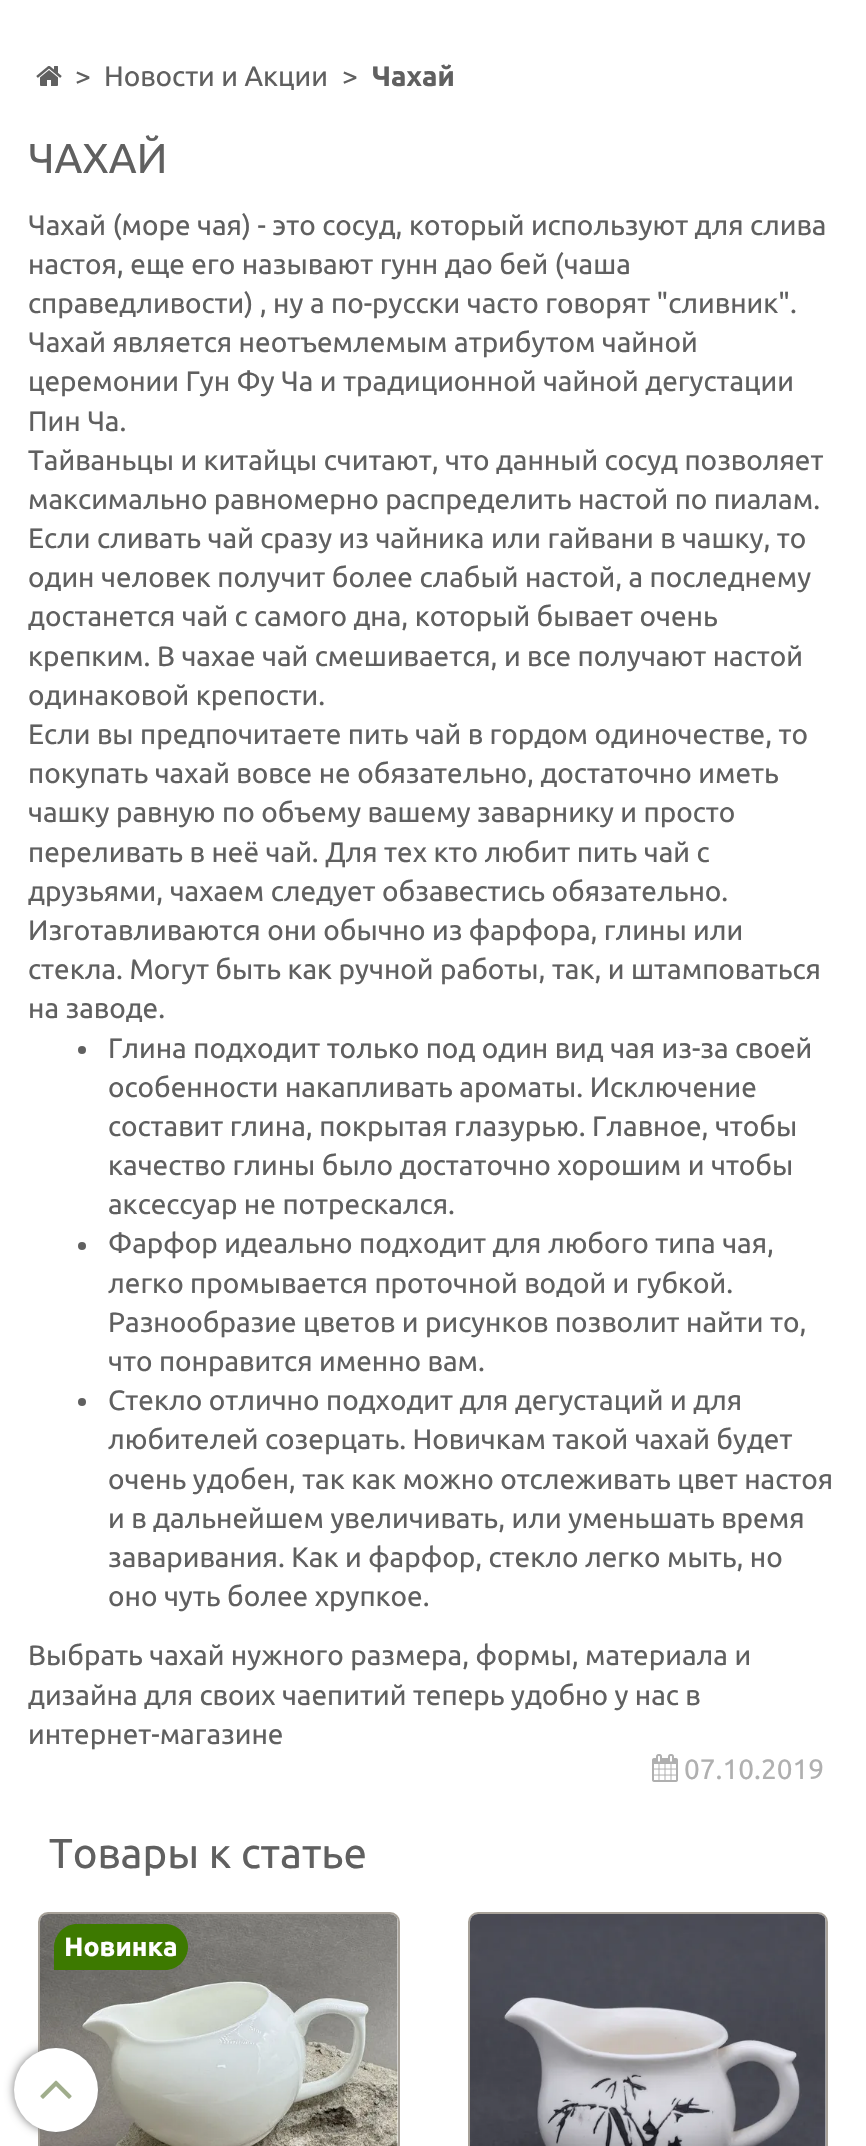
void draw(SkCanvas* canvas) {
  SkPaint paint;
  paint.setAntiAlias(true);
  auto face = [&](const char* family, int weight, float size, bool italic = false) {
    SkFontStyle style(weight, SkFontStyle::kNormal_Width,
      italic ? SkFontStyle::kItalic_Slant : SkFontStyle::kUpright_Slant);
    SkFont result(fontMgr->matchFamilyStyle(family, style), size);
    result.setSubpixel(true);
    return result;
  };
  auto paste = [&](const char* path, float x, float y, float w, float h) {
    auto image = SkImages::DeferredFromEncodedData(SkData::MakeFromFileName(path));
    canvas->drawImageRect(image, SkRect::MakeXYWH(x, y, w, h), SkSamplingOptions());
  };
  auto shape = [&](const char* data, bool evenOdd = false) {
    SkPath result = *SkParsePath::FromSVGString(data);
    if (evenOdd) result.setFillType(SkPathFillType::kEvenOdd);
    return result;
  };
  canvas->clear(0xffffffff);
  paste("img/1.png", 36, 66, 26, 20);
  paint.setColor(0xff606060);
  canvas->drawCircle(82, 1050, 4, paint);
  canvas->drawCircle(82, 1246, 4, paint);
  canvas->drawCircle(82, 1402, 4, paint);
  paste("img/2.png", 652, 1754, 26, 28);
  paint.setStroke(true);
  paint.setStrokeWidth(2);
  paint.setColor(0xffa8a299);
  canvas->drawRoundRect(SkRect::MakeXYWH(39, 1913, 360, 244), 9, 9, paint);
  paste("img/3.png", 40, 1914, 358, 232);
  paint.setStroke(false);
  paint.setColor(0xff3d7900);
  canvas->drawPath(shape("M77 1924H165C177.5 1924 188 1934.5 188 1947C188 1959.5 177.5 1970 165 1970H54V1947C54 1934.5 64.5 1924 77 1924Z"), paint);
  paint.setStroke(true);
  paint.setColor(0xffa8a299);
  canvas->drawRoundRect(SkRect::MakeXYWH(469, 1913, 358, 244), 9, 9, paint);
  paste("img/4.png", 470, 1914, 356, 232);
  paint.setStroke(false);
  paint.setColor(0xff777777);
  paint.setMaskFilter(SkMaskFilter::MakeBlur(kNormal_SkBlurStyle, 5));
  canvas->drawRoundRect(SkRect::MakeXYWH(14, 2048, 84, 84), 42, 42, paint);
  paint.setMaskFilter(nullptr);
  paint.setColor(0xffffffff);
  canvas->drawCircle(56, 2090, 42, paint);
  paste("img/5.png", 40, 2080, 32, 19);
  auto f0 = face("Ubuntu", 400, 28);
  paint.setColor(0xff606060);
  {
    const struct { const char* s; float x, y; } items[] = {
      {">", 75, 86},
      {"Новости и Акции", 104, 86},
      {">", 342, 86},
    };
    for (auto [s, x, y] : items) {
      canvas->drawString(s, x, y, f0, paint);
    }
  }
  auto f1 = face("Ubuntu", 700, 28);
  canvas->drawString("Чахай", 372, 86, f1, paint);
  auto f2 = face("Ubuntu", 400, 42);
  canvas->drawString("ЧАХАЙ", 28, 173, f2, paint);
  {
    const struct { const char* s; float x, y; } items[] = {
      {"Чахай (море чая) - это сосуд, который используют для слива", 28, 235},
      {"настоя, еще его называют гунн дао бей (чаша", 28, 274},
      {"справедливости) , ну а по-русски часто говорят \"сливник\".", 28, 313},
      {"Чахай является неотъемлемым атрибутом чайной", 28, 352},
      {"церемонии Гун Фу Ча и традиционной чайной дегустации", 28, 391},
      {"Пин Ча.", 28, 431},
      {"Тайваньцы и китайцы считают, что данный сосуд позволяет", 28, 470},
      {"максимально равномерно распределить настой по пиалам.", 28, 509},
      {"Если сливать чай сразу из чайника или гайвани в чашку, то", 28, 548},
      {"один человек получит более слабый настой, а последнему", 28, 587},
      {"достанется чай с самого дна, который бывает очень", 28, 626},
      {"крепким. В чахае чай смешивается, и все получают настой", 28, 666},
      {"одинаковой крепости.", 28, 705},
      {"Если вы предпочитаете пить чай в гордом одиночестве, то", 28, 744},
      {"покупать чахай вовсе не обязательно, достаточно иметь", 28, 783},
      {"чашку равную по объему вашему заварнику и просто", 28, 822},
      {"переливать в неё чай. Для тех кто любит пить чай с", 28, 862},
      {"друзьями, чахаем следует обзавестись обязательно.", 28, 901},
      {"Изготавливаются они обычно из фарфора, глины или", 28, 940},
      {"стекла. Могут быть как ручной работы, так, и штамповаться", 28, 979},
      {"на заводе.", 28, 1018},
      {"Глина подходит только под один вид чая из-за своей", 108, 1058},
      {"особенности накапливать ароматы. Исключение", 108, 1097},
      {"составит глина, покрытая глазурью. Главное, чтобы", 108, 1136},
      {"качество глины было достаточно хорошим и чтобы", 108, 1175},
      {"аксессуар не потрескался.", 108, 1214},
      {"Фарфор идеально подходит для любого типа чая,", 108, 1253},
      {"легко промывается проточной водой и губкой.", 108, 1293},
      {"Разнообразие цветов и рисунков позволит найти то,", 108, 1332},
      {"что понравится именно вам.", 108, 1371},
      {"Стекло отлично подходит для дегустаций и для", 108, 1410},
      {"любителей созерцать. Новичкам такой чахай будет", 108, 1449},
      {"очень удобен, так как можно отслеживать цвет настоя", 108, 1489},
      {"и в дальнейшем увеличивать, или уменьшать время", 108, 1528},
      {"заваривания. Как и фарфор, стекло легко мыть, но", 108, 1567},
      {"оно чуть более хрупкое.", 108, 1606},
      {"Выбрать чахай нужного размера, формы, материала и", 28, 1665},
      {"дизайна для своих чаепитий теперь удобно у нас в", 28, 1705},
      {"интернет-магазине", 28, 1744},
    };
    for (auto [s, x, y] : items) {
      canvas->drawString(s, x, y, f0, paint);
    }
  }
  paint.setColor(0xffb0b0b0);
  canvas->drawString("07.10.2019", 684, 1779, f0, paint);
  paint.setColor(0xff606060);
  canvas->drawString("Товары к статье", 49, 1868, f2, paint);
  auto f3 = face("Ubuntu", 700, 26.5f);
  paint.setColor(0xffffffff);
  canvas->drawString("Новинка", 64, 1956, f3, paint);
}
